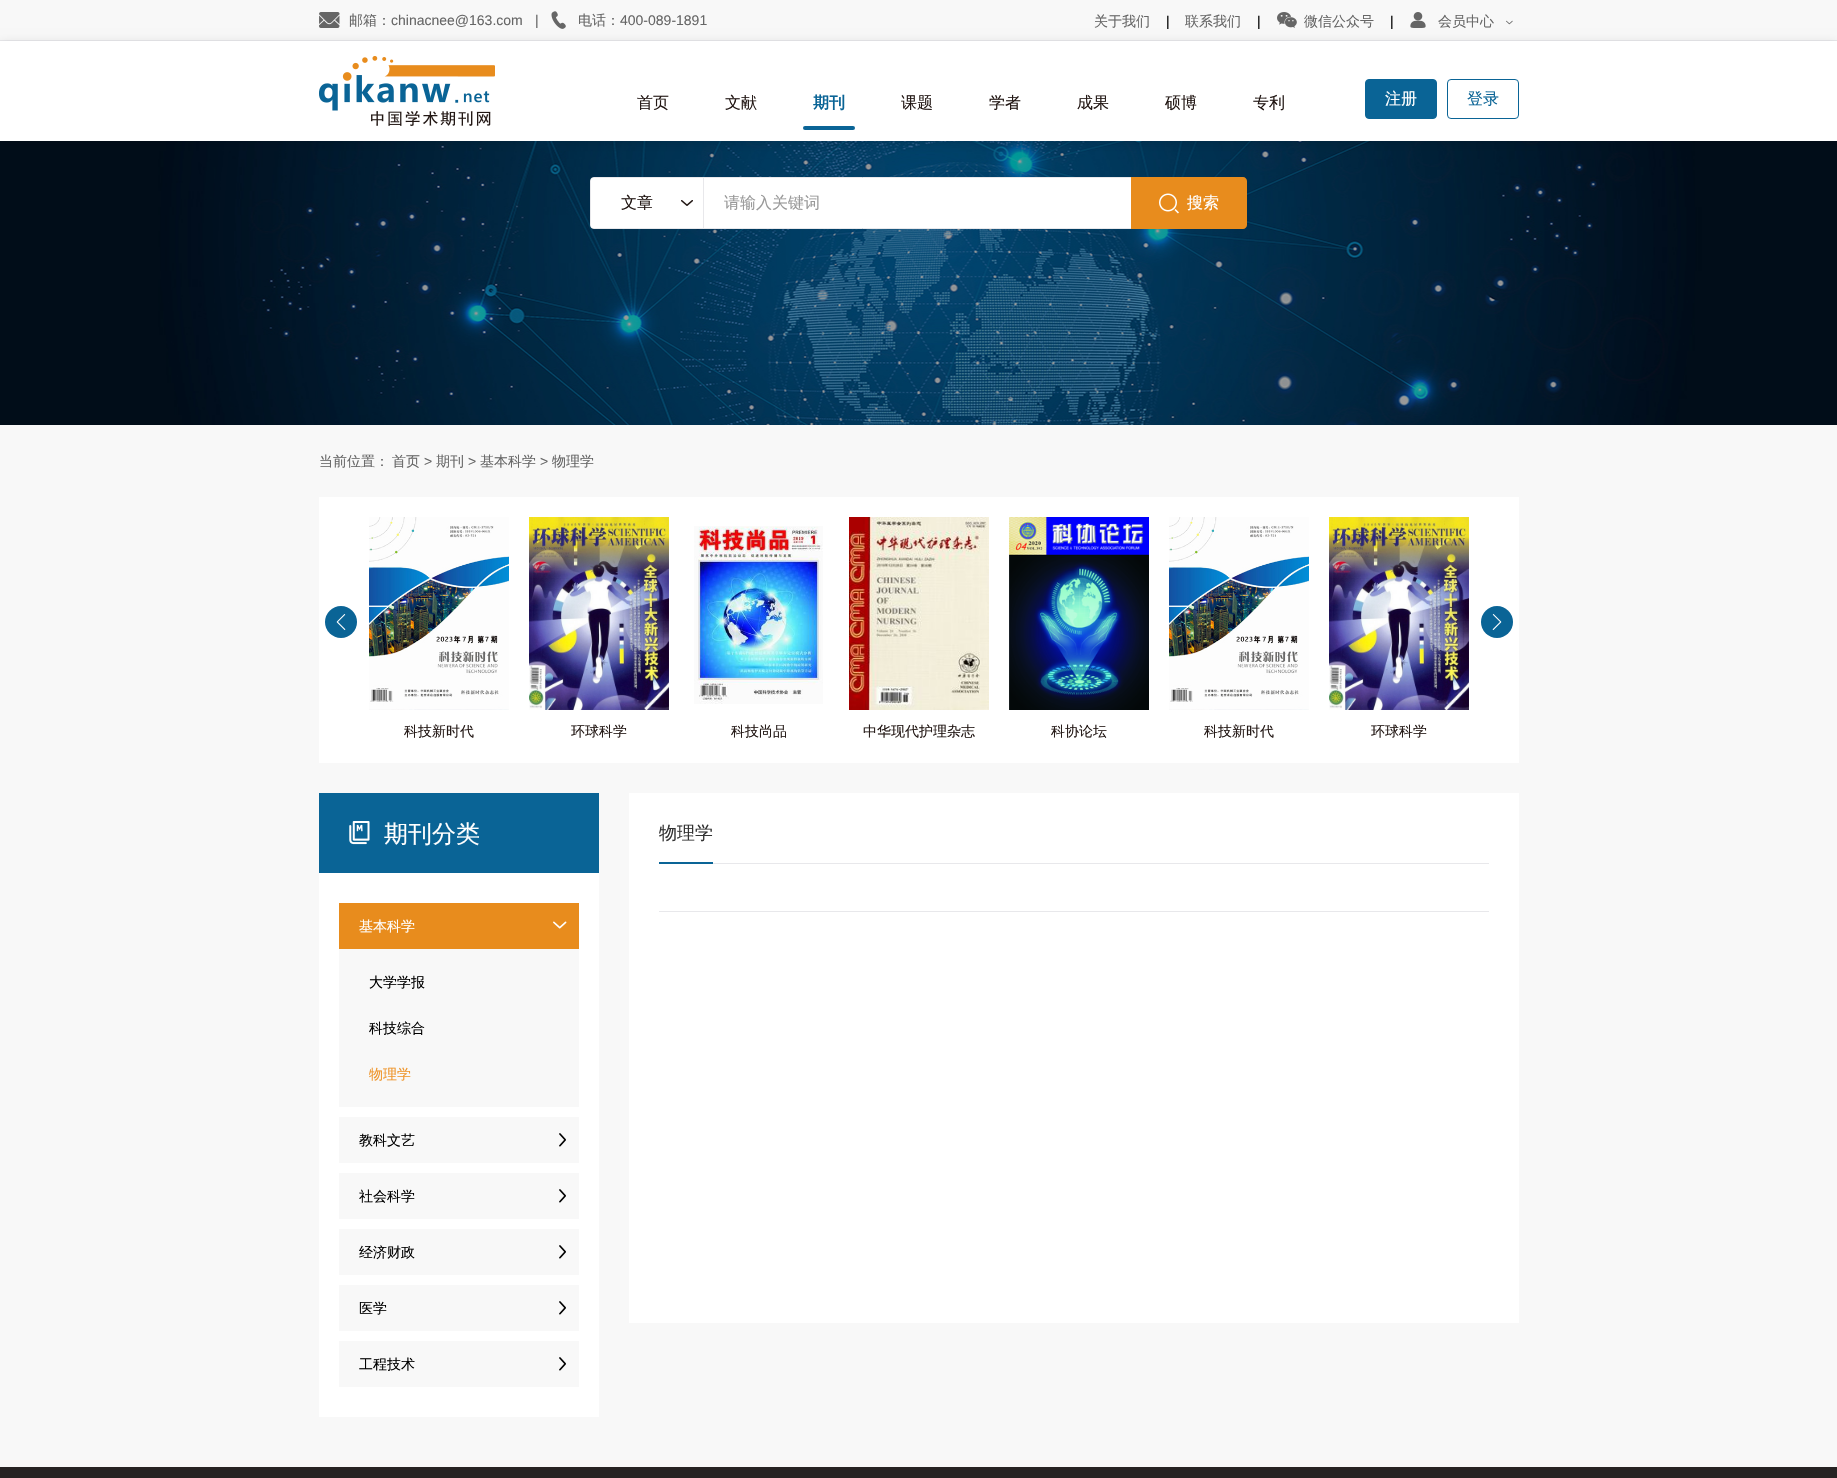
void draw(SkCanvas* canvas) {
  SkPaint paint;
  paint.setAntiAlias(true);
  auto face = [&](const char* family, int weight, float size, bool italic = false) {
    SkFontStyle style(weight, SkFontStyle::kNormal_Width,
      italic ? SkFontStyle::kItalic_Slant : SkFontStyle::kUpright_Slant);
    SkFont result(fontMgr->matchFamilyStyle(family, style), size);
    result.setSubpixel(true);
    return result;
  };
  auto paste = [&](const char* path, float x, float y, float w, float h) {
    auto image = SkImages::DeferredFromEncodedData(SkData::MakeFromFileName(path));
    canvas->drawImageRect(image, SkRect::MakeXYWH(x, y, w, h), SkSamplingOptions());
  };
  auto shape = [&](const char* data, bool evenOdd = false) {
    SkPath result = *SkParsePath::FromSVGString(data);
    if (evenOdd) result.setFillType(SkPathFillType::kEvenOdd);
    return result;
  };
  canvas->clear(0xfff8f8f8);
  paint.setColor(0xffe8e8eb);
  canvas->drawRect(SkRect::MakeXYWH(0, 40, 1837, 1), paint);
  paste("img/7.png", 0, 141, 1837, 284);
  paint.setColor(0x1f000000);
  paint.setMaskFilter(SkMaskFilter::MakeBlur(kNormal_SkBlurStyle, 5));
  canvas->drawRect(SkRect::MakeXYWH(0, 43, 1837, 100), paint);
  paint.setMaskFilter(nullptr);
  paste("img/1.png", 319, 12, 21, 16);
  paste("img/2.png", 551, 11, 15, 18);
  paste("img/3.png", 1277, 12, 20, 16);
  paste("img/4.png", 1410, 12, 16, 16);
  paste("img/5.png", 1506, 20, 7, 5);
  paint.setColor(0xffffffff);
  canvas->drawRect(SkRect::MakeXYWH(0, 41, 1837, 100), paint);
  paste("img/6.png", 319, 56, 176, 70);
  paint.setColor(0xff0a6496);
  canvas->drawRoundRect(SkRect::MakeXYWH(803, 126, 52, 4), 2, 2, paint);
  canvas->drawRoundRect(SkRect::MakeXYWH(1365.5f, 79.5f, 71, 39), 3.5f, 3.5f, paint);
  paint.setStroke(true);
  paint.setStrokeWidth(1);
  canvas->drawRoundRect(SkRect::MakeXYWH(1365.5f, 79.5f, 71, 39), 3.5f, 3.5f, paint);
  canvas->drawRoundRect(SkRect::MakeXYWH(1447.5f, 79.5f, 71, 39), 3.5f, 3.5f, paint);
  paint.setStroke(false);
  paint.setColor(0xffffffff);
  canvas->drawRoundRect(SkRect::MakeXYWH(590.5f, 177.5f, 544, 51), 3.5f, 3.5f, paint);
  paint.setStroke(true);
  paint.setColor(0xffe8e8eb);
  canvas->drawRoundRect(SkRect::MakeXYWH(590.5f, 177.5f, 544, 51), 3.5f, 3.5f, paint);
  paint.setStroke(false);
  paint.setColor(0xffffffff);
  canvas->drawRoundRect(SkRect::MakeXYWH(591, 178, 112, 50), 2, 2, paint);
  paste("img/8.png", 681, 200, 12, 6);
  paint.setColor(0xffe8e8eb);
  canvas->drawRect(SkRect::MakeXYWH(703, 178, 1, 50), paint);
  paint.setColor(0xffe88c1d);
  canvas->drawPath(shape("M1131 177H1243C1245 177 1247 179 1247 181V225C1247 227 1245 229 1243 229H1131Z"), paint);
  paste("img/9.png", 1159, 193, 20, 21);
  paint.setColor(0xffffffff);
  canvas->drawRect(SkRect::MakeXYWH(319, 497, 1200, 266), paint);
  paint.setColor(0xff0a6496);
  canvas->drawCircle(341, 622, 16, paint);
  paste("img/10.png", 336, 614, 10, 16);
  canvas->drawCircle(1497, 622, 16, paint);
  paste("img/11.png", 1492, 614, 10, 16);
  paste("img/12.png", 369, 517, 140, 193);
  paste("img/13.png", 529, 517, 140, 193);
  paste("img/14.png", 694, 526, 129, 178);
  paste("img/15.png", 849, 517, 140, 193);
  paste("img/16.png", 1009, 517, 140, 193);
  paste("img/17.png", 1169, 517, 140, 193);
  paste("img/13.png", 1329, 517, 140, 193);
  paint.setColor(0xffffffff);
  canvas->drawRect(SkRect::MakeXYWH(319, 873, 280, 544), paint);
  paint.setColor(0xff0a6496);
  canvas->drawRect(SkRect::MakeXYWH(319, 793, 280, 80), paint);
  paste("img/18.png", 349, 821, 21, 24);
  paint.setColor(0xfff8f8f8);
  canvas->drawRect(SkRect::MakeXYWH(339, 949, 240, 158), paint);
  paint.setColor(0xffe88c1d);
  canvas->drawRect(SkRect::MakeXYWH(339, 903, 240, 46), paint);
  paste("img/19.png", 553, 921, 14, 8);
  paint.setColor(0xfff8f8f8);
  canvas->drawRect(SkRect::MakeXYWH(339, 1117, 240, 46), paint);
  paste("img/20.png", 559, 1133, 7, 14);
  canvas->drawRect(SkRect::MakeXYWH(339, 1173, 240, 46), paint);
  paste("img/20.png", 559, 1189, 7, 14);
  canvas->drawRect(SkRect::MakeXYWH(339, 1229, 240, 46), paint);
  paste("img/20.png", 559, 1245, 7, 14);
  canvas->drawRect(SkRect::MakeXYWH(339, 1285, 240, 46), paint);
  paste("img/20.png", 559, 1301, 7, 14);
  canvas->drawRect(SkRect::MakeXYWH(339, 1341, 240, 46), paint);
  paste("img/20.png", 559, 1357, 7, 14);
  {
    const struct { float x, y, w, h; SkColor color; } items[] = {
      {629, 793, 890, 530, 0xffffffff},
      {713, 863, 776, 1, 0xffe8e8eb},
      {659, 862, 54, 2, 0xff0a6496},
      {659, 911, 830, 1, 0xffe8e8eb},
      {0, 1467, 1837, 11, 0xff262323},
    };
    for (auto [x, y, w, h, color] : items) {
      paint.setColor(color);
      canvas->drawRect(SkRect::MakeXYWH(x, y, w, h), paint);
    }
  }
  auto f0 = face("WenQuanYi Zen Hei", 500, 14);
  paint.setColor(0xff666666);
  canvas->drawString("邮箱：", 349, 25, f0, paint);
  auto f1 = face("Liberation Sans", 400, 14);
  canvas->drawString("chinacnee@163.com", 391, 25, f1, paint);
  canvas->drawString("|", 535, 25, f1, paint);
  canvas->drawString("电话：", 578, 25, f0, paint);
  canvas->drawString("400-089-1891", 620, 25, f1, paint);
  canvas->drawString("关于我们", 1094, 26, f0, paint);
  paint.setColor(0xff000000);
  canvas->drawString("|", 1166, 26, f1, paint);
  paint.setColor(0xff666666);
  canvas->drawString("联系我们", 1185, 26, f0, paint);
  paint.setColor(0xff000000);
  canvas->drawString("|", 1257, 26, f1, paint);
  paint.setColor(0xff666666);
  canvas->drawString("微信公众号", 1304, 26, f0, paint);
  paint.setColor(0xff000000);
  canvas->drawString("|", 1390, 26, f1, paint);
  paint.setColor(0xff666666);
  canvas->drawString("会员中心", 1438, 26, f0, paint);
  auto f2 = face("WenQuanYi Zen Hei", 500, 16);
  paint.setColor(0xff231815);
  canvas->drawString("首页", 637, 108, f2, paint);
  canvas->drawString("文献", 725, 108, f2, paint);
  auto f3 = face("WenQuanYi Zen Hei", 700, 16);
  paint.setColor(0xff0a6496);
  canvas->drawString("期刊", 813, 108, f3, paint);
  paint.setColor(0xff231815);
  {
    const struct { const char* s; float x, y; } items[] = {
      {"课题", 901, 108},
      {"学者", 989, 108},
      {"成果", 1077, 108},
      {"硕博", 1165, 108},
      {"专利", 1253, 108},
    };
    for (auto [s, x, y] : items) {
      canvas->drawString(s, x, y, f2, paint);
    }
  }
  paint.setColor(0xffffffff);
  canvas->drawString("注册", 1385, 104, f2, paint);
  paint.setColor(0xff0a6496);
  canvas->drawString("登录", 1467, 104, f2, paint);
  paint.setColor(0xff231815);
  canvas->drawString("文章", 621, 208, f2, paint);
  paint.setColor(0xff999999);
  canvas->drawString("请输入关键词", 724, 208, f2, paint);
  paint.setColor(0xffffffff);
  canvas->drawString("搜索", 1187, 208, f2, paint);
  paint.setColor(0xff666666);
  canvas->drawString("当前位置：", 319, 466, f0, paint);
  canvas->drawString("首页", 392, 466, f0, paint);
  canvas->drawString(">", 424, 466, f1, paint);
  canvas->drawString("期刊", 436, 466, f0, paint);
  canvas->drawString(">", 468, 466, f1, paint);
  canvas->drawString("基本科学", 480, 466, f0, paint);
  canvas->drawString(">", 540, 466, f1, paint);
  canvas->drawString("物理学", 552, 466, f0, paint);
  paint.setColor(0xff231815);
  {
    const struct { const char* s; float x, y; } items[] = {
      {"科技新时代", 404, 736},
      {"环球科学", 571, 736},
      {"科技尚品", 731, 736},
      {"中华现代护理杂志", 863, 736},
      {"科协论坛", 1051, 736},
      {"科技新时代", 1204, 736},
      {"环球科学", 1371, 736},
    };
    for (auto [s, x, y] : items) {
      canvas->drawString(s, x, y, f0, paint);
    }
  }
  auto f4 = face("WenQuanYi Zen Hei", 500, 24);
  paint.setColor(0xffffffff);
  canvas->drawString("期刊分类", 384, 842, f4, paint);
  canvas->drawString("基本科学", 359, 931, f0, paint);
  paint.setColor(0xff000000);
  canvas->drawString("大学学报", 369, 987, f0, paint);
  canvas->drawString("科技综合", 369, 1033, f0, paint);
  paint.setColor(0xffef962c);
  canvas->drawString("物理学", 369, 1079, f0, paint);
  paint.setColor(0xff000000);
  {
    const struct { const char* s; float x, y; } items[] = {
      {"教科文艺", 359, 1145},
      {"社会科学", 359, 1201},
      {"经济财政", 359, 1257},
      {"医学", 359, 1313},
      {"工程技术", 359, 1369},
    };
    for (auto [s, x, y] : items) {
      canvas->drawString(s, x, y, f0, paint);
    }
  }
  auto f5 = face("WenQuanYi Zen Hei", 500, 18);
  paint.setColor(0xff333333);
  canvas->drawString("物理学", 659, 839, f5, paint);
}
